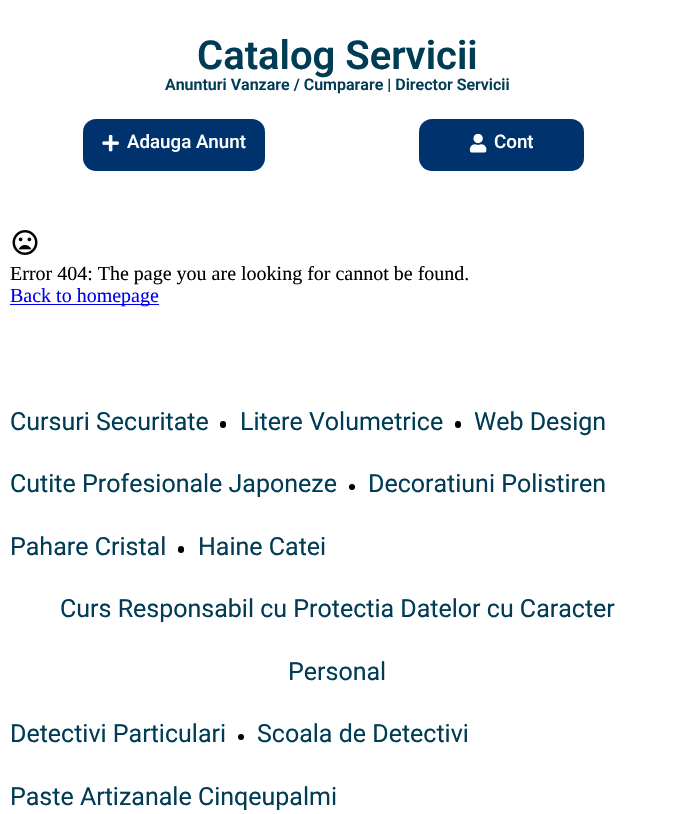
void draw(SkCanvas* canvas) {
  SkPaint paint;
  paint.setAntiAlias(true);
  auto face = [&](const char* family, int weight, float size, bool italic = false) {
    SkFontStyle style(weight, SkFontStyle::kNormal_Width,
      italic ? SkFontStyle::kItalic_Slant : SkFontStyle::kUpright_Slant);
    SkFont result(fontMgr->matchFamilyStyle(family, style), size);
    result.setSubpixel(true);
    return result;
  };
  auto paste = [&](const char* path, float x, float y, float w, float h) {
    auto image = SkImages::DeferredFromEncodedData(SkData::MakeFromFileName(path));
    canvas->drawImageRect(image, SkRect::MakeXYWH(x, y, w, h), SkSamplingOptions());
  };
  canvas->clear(0xffffffff);
  paint.setColor(0xff00336e);
  canvas->drawRoundRect(SkRect::MakeXYWH(83, 119, 182, 52), 13, 13, paint);
  paste("img/1.png", 102, 134, 17, 18);
  canvas->drawRoundRect(SkRect::MakeXYWH(419, 119, 165, 52), 13, 13, paint);
  paste("img/2.png", 469, 134, 18, 19);
  paste("img/3.png", 12, 230, 26, 25);
  paint.setColor(0xff0000ee);
  canvas->drawRect(SkRect::MakeXYWH(10, 304, 149, 1), paint);
  paint.setColor(0xff000000);
  canvas->drawRoundRect(SkRect::MakeXYWH(220, 421, 6, 7), 3, 3, paint);
  canvas->drawRoundRect(SkRect::MakeXYWH(455, 421, 6, 7), 3, 3, paint);
  canvas->drawCircle(352, 487, 3, paint);
  canvas->drawRoundRect(SkRect::MakeXYWH(178, 546, 6, 7), 3, 3, paint);
  canvas->drawCircle(241, 737, 3, paint);
  auto f0 = face("Roboto", 600, 40);
  paint.setColor(0xff003c55);
  canvas->drawString("Catalog Servicii", 197, 69, f0, paint);
  auto f1 = face("Roboto", 600, 16);
  canvas->drawString("Anunturi Vanzare / Cumparare | Director Servicii", 165, 90, f1, paint);
  auto f2 = face("Roboto", 500, 18.75f);
  paint.setColor(0xffffffff);
  canvas->drawString("Adauga Anunt", 127, 148, f2, paint);
  canvas->drawString("Cont", 494, 148, f2, paint);
  auto f3 = face("Liberation Serif", 400, 20);
  paint.setColor(0xff000000);
  canvas->drawString("Error 404: The page you are looking for cannot be found.", 10, 280, f3, paint);
  paint.setColor(0xff0000ee);
  canvas->drawString("Back to homepage", 10, 302, f3, paint);
  auto f4 = face("Roboto", 400, 25);
  paint.setColor(0xff003c55);
  {
    const struct { const char* s; float x, y; } items[] = {
      {"Cursuri Securitate", 10, 430},
      {"Litere Volumetrice", 240, 430},
      {"Web Design", 474, 430},
      {"Cutite Profesionale Japoneze", 10, 492},
      {"Decoratiuni Polistiren", 368, 492},
      {"Pahare Cristal", 10, 555},
      {"Haine Catei", 198, 555},
      {"Curs Responsabil cu Protectia Datelor cu Caracter", 60, 617},
      {"Personal", 288, 680},
      {"Detectivi Particulari", 10, 742},
      {"Scoala de Detectivi", 257, 742},
      {"Paste Artizanale Cinqeupalmi", 10, 805},
    };
    for (auto [s, x, y] : items) {
      canvas->drawString(s, x, y, f4, paint);
    }
  }
}
